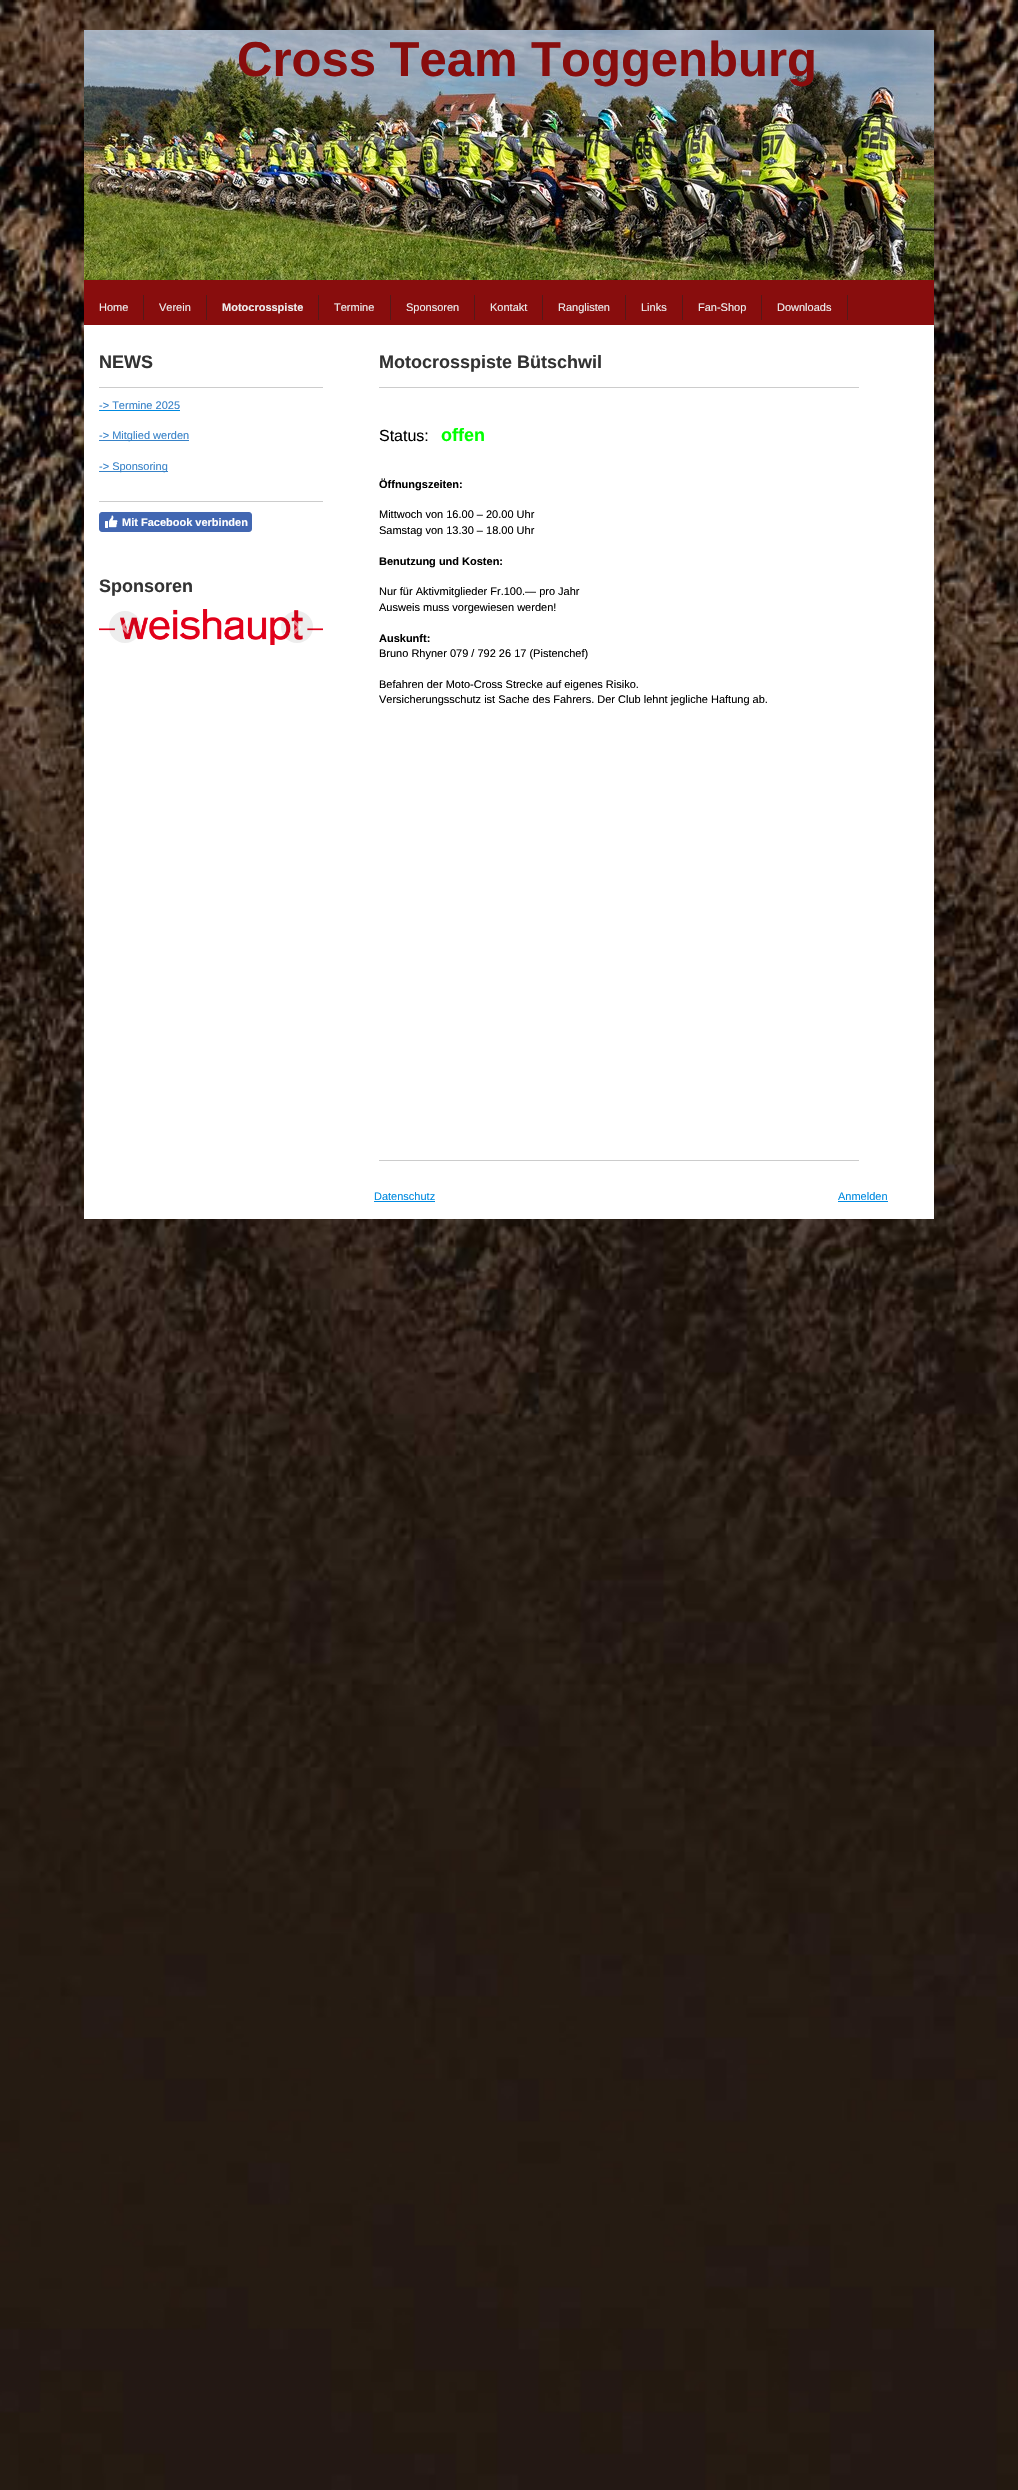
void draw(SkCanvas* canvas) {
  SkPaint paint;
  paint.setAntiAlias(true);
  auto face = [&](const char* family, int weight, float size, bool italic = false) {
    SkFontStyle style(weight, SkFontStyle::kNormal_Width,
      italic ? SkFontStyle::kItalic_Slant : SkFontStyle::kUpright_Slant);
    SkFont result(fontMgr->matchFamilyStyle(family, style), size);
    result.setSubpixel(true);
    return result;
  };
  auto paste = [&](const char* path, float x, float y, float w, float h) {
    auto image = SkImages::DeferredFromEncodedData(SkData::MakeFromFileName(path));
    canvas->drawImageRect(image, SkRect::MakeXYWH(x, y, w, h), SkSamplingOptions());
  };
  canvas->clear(0xffffffff);
  paste("img/1.png", 0, 0, 1018, 2490);
  paste("img/2.png", 84, 30, 850, 250);
  {
    const struct { float x, y, w, h; SkColor color; } items[] = {
      {84, 280, 850, 45, 0xff880d0d},
      {143, 295, 1, 25, 0xff551919},
      {206, 295, 1, 25, 0xff551919},
      {318, 295, 1, 25, 0xff551919},
      {390, 295, 1, 25, 0xff551919},
      {474, 295, 1, 25, 0xff551919},
      {542, 295, 1, 25, 0xff551919},
      {625, 295, 1, 25, 0xff551919},
      {682, 295, 1, 25, 0xff551919},
      {761, 295, 1, 25, 0xff551919},
      {847, 295, 1, 25, 0xff551919},
      {84, 325, 850, 894, 0xffffffff},
      {99, 387, 224, 1, 0xffcccccc},
      {99, 410, 81, 1, 0xff008ae0},
      {99, 440, 90, 1, 0xff3782c8},
      {99, 471, 69, 1, 0xff3782c8},
      {99, 501, 224, 1, 0xffcccccc},
    };
    for (auto [x, y, w, h, color] : items) {
      paint.setColor(color);
      canvas->drawRect(SkRect::MakeXYWH(x, y, w, h), paint);
    }
  }
  paint.setColor(0xff4267b2);
  canvas->drawRoundRect(SkRect::MakeXYWH(99.5f, 512.5f, 152, 19), 2.5f, 2.5f, paint);
  paint.setStroke(true);
  paint.setStrokeWidth(1);
  canvas->drawRoundRect(SkRect::MakeXYWH(99.5f, 512.5f, 152, 19), 2.5f, 2.5f, paint);
  paste("img/3.png", 105, 515, 13, 13);
  paste("img/4.png", 99, 609, 224, 36);
  paint.setStroke(false);
  paint.setColor(0x12000000);
  canvas->drawCircle(125, 627, 16, paint);
  paste("img/5.png", 121, 620, 9, 14);
  canvas->drawCircle(297, 627, 16, paint);
  paste("img/6.png", 293, 620, 8, 14);
  {
    const struct { float x, y, w, h; SkColor color; } items[] = {
      {379, 387, 480, 1, 0xffcccccc},
      {379, 1160, 480, 1, 0xffcccccc},
      {374, 1201, 61, 1, 0xff008ae0},
      {838, 1201, 50, 1, 0xff008ae0},
    };
    for (auto [x, y, w, h, color] : items) {
      paint.setColor(color);
      canvas->drawRect(SkRect::MakeXYWH(x, y, w, h), paint);
    }
  }
  auto f0 = face("Liberation Sans", 700, 49);
  paint.setColor(0xff880d0d);
  canvas->drawString("Cross Team Toggenburg", 237, 76, f0, paint);
  auto f1 = face("Liberation Sans", 400, 11);
  paint.setColor(0xffeeeeee);
  canvas->drawString("Home", 99, 311, f1, paint);
  canvas->drawString("Verein", 159, 311, f1, paint);
  auto f2 = face("Liberation Sans", 700, 11);
  canvas->drawString("Motocrosspiste", 222, 311, f2, paint);
  {
    const struct { const char* s; float x, y; } items[] = {
      {"Termine", 334, 311},
      {"Sponsoren", 406, 311},
      {"Kontakt", 490, 311},
      {"Ranglisten", 558, 311},
      {"Links", 641, 311},
      {"Fan-Shop", 698, 311},
      {"Downloads", 777, 311},
    };
    for (auto [s, x, y] : items) {
      canvas->drawString(s, x, y, f1, paint);
    }
  }
  auto f3 = face("Liberation Sans", 700, 18);
  paint.setColor(0xff333333);
  canvas->drawString("NEWS", 99, 368, f3, paint);
  paint.setColor(0xff3782c8);
  {
    const struct { const char* s; float x, y; } items[] = {
      {"-> Termine 2025", 99, 409},
      {"-> Mitglied werden", 99, 439},
      {"-> Sponsoring", 99, 470},
    };
    for (auto [s, x, y] : items) {
      canvas->drawString(s, x, y, f1, paint);
    }
  }
  paint.setColor(0xffffffff);
  canvas->drawString("Mit Facebook verbinden", 122, 526, f2, paint);
  paint.setColor(0xff333333);
  canvas->drawString("Sponsoren", 99, 592, f3, paint);
  canvas->drawString("Motocrosspiste Bütschwil", 379, 368, f3, paint);
  auto f4 = face("Liberation Sans", 400, 16);
  paint.setColor(0xff000000);
  canvas->drawString("Status:", 379, 441, f4, paint);
  paint.setColor(0xff00ff00);
  canvas->drawString("offen", 441, 441, f3, paint);
  paint.setColor(0xff000000);
  canvas->drawString("Öffnungszeiten:", 379, 488, f2, paint);
  canvas->drawString("Mittwoch von 16.00 – 20.00 Uhr", 379, 518, f1, paint);
  canvas->drawString("Samstag von 13.30 – 18.00 Uhr", 379, 534, f1, paint);
  canvas->drawString("Benutzung und Kosten:", 379, 565, f2, paint);
  canvas->drawString("Nur für Aktivmitglieder Fr.100.— pro Jahr", 379, 595, f1, paint);
  canvas->drawString("Ausweis muss vorgewiesen werden!", 379, 611, f1, paint);
  canvas->drawString("Auskunft:", 379, 642, f2, paint);
  {
    const struct { const char* s; float x, y; } items[] = {
      {"Bruno Rhyner 079 / 792 26 17 (Pistenchef)", 379, 657},
      {"Befahren der Moto-Cross Strecke auf eigenes Risiko.", 379, 688},
      {"Versicherungsschutz ist Sache des Fahrers. Der Club lehnt jegliche Haftung ab.", 379, 703},
    };
    for (auto [s, x, y] : items) {
      canvas->drawString(s, x, y, f1, paint);
    }
  }
  paint.setColor(0xff008ae0);
  canvas->drawString("Datenschutz", 374, 1200, f1, paint);
  canvas->drawString("Anmelden", 838, 1200, f1, paint);
}
